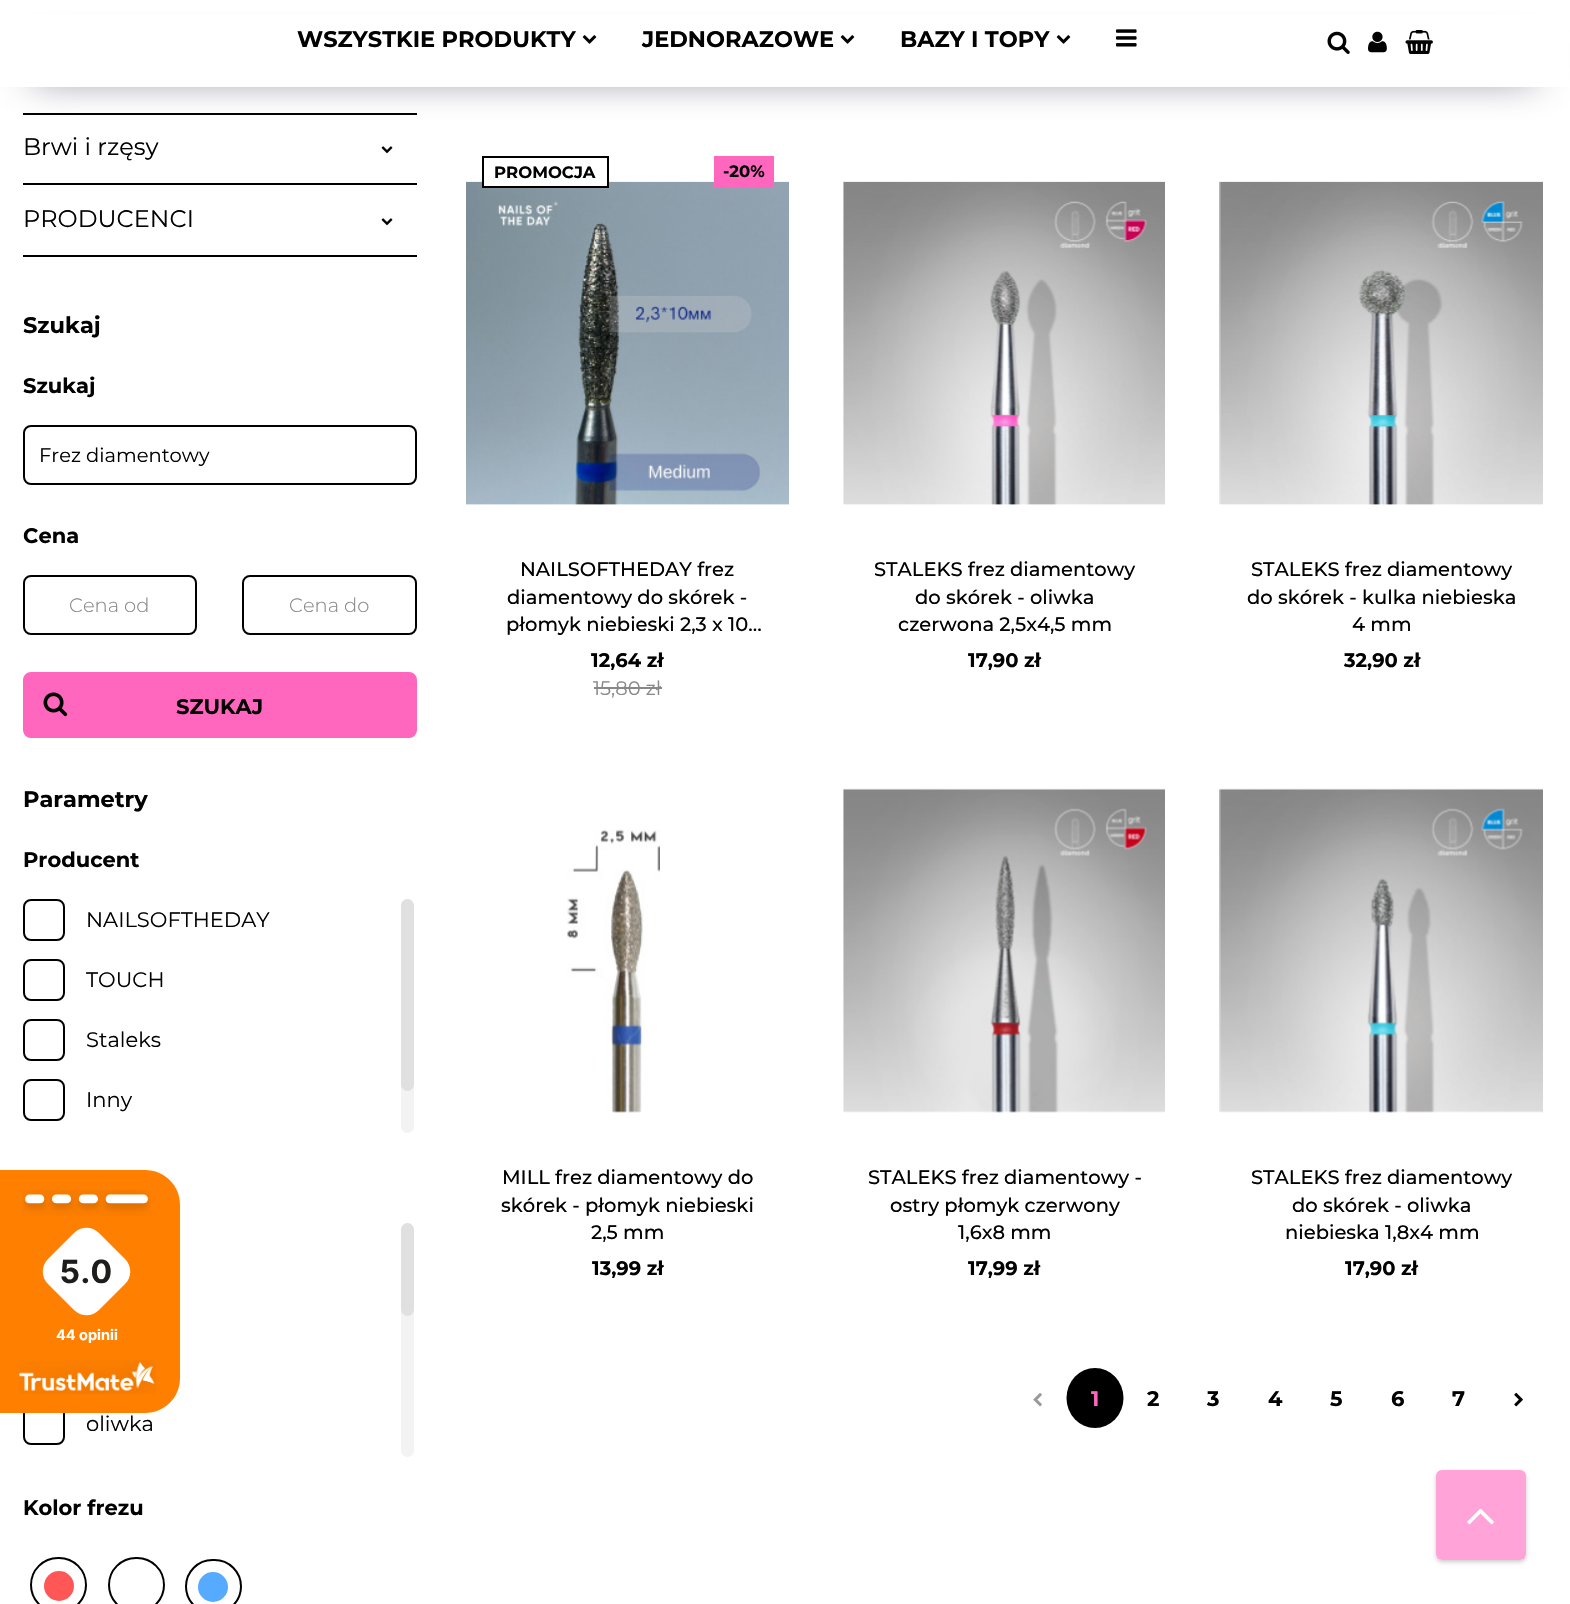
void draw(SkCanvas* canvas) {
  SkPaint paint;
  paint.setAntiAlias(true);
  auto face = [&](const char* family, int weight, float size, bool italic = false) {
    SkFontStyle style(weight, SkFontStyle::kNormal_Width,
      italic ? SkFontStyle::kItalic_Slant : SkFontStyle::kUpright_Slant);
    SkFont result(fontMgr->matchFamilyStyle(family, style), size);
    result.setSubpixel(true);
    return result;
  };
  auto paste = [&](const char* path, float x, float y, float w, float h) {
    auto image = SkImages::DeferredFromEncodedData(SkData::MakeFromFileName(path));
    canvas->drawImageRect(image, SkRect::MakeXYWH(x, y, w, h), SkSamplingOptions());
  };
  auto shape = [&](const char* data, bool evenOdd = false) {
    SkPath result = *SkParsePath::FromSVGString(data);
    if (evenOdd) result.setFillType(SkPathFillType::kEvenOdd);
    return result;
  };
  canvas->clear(0xffffffff);
  paint.setColor(0xff000000);
  canvas->drawRect(SkRect::MakeXYWH(23, 113, 394, 2), paint);
  paint.setColor(0xff42445a);
  paint.setMaskFilter(SkMaskFilter::MakeBlur(kNormal_SkBlurStyle, 19));
  canvas->drawRect(SkRect::MakeXYWH(33, 57, 1502, 18), paint);
  paint.setMaskFilter(nullptr);
  paint.setColor(0xffffffff);
  canvas->drawRect(SkRect::MakeXYWH(0, 15, 1569, 72), paint);
  paste("img/1.png", 582, 35, 15, 9);
  paste("img/1.png", 840, 35, 15, 9);
  paste("img/1.png", 1056, 35, 15, 9);
  paste("img/2.png", 1116, 29, 21, 18);
  paste("img/3.png", 1327, 31, 23, 23);
  paste("img/4.png", 1368, 31, 19, 22);
  paste("img/5.png", 1405, 30, 28, 24);
  paste("img/6.png", 381, 146, 12, 8);
  paint.setColor(0xff000000);
  canvas->drawRect(SkRect::MakeXYWH(23, 183, 394, 2), paint);
  canvas->drawRect(SkRect::MakeXYWH(23, 255, 394, 2), paint);
  paste("img/6.png", 381, 218, 12, 8);
  paint.setStroke(true);
  paint.setStrokeWidth(2);
  canvas->drawRoundRect(SkRect::MakeXYWH(24, 426, 392, 58), 7, 7, paint);
  canvas->drawRoundRect(SkRect::MakeXYWH(24, 576, 172, 58), 7, 7, paint);
  canvas->drawRoundRect(SkRect::MakeXYWH(243, 576, 173, 58), 7, 7, paint);
  paint.setStroke(false);
  paint.setColor(0xffff66be);
  canvas->drawRoundRect(SkRect::MakeXYWH(24.5f, 673.5f, 391, 63), 6.5f, 6.5f, paint);
  paint.setStroke(true);
  paint.setStrokeWidth(3);
  canvas->drawRoundRect(SkRect::MakeXYWH(24.5f, 673.5f, 391, 63), 6.5f, 6.5f, paint);
  paste("img/7.png", 43, 692, 25, 25);
  paint.setStrokeWidth(2);
  paint.setColor(0xff000000);
  canvas->drawRoundRect(SkRect::MakeXYWH(24, 900, 40, 40), 7, 7, paint);
  canvas->drawRoundRect(SkRect::MakeXYWH(24, 960, 40, 40), 7, 7, paint);
  canvas->drawRoundRect(SkRect::MakeXYWH(24, 1020, 40, 40), 7, 7, paint);
  canvas->drawRoundRect(SkRect::MakeXYWH(24, 1080, 40, 40), 7, 7, paint);
  paint.setStroke(false);
  paint.setColor(0xfff3f3f3);
  canvas->drawRoundRect(SkRect::MakeXYWH(401, 899, 13, 234), 6.5f, 6.5f, paint);
  paint.setColor(0x66c2c2c2);
  canvas->drawRoundRect(SkRect::MakeXYWH(401, 899, 13, 192), 6.5f, 6.5f, paint);
  paint.setStroke(true);
  paint.setColor(0xff000000);
  canvas->drawRoundRect(SkRect::MakeXYWH(24, 1404, 40, 40), 7, 7, paint);
  paint.setStroke(false);
  paint.setColor(0xfff3f3f3);
  canvas->drawRoundRect(SkRect::MakeXYWH(401, 1223, 13, 234), 6.5f, 6.5f, paint);
  paint.setColor(0x66c2c2c2);
  canvas->drawRoundRect(SkRect::MakeXYWH(401, 1223, 13, 93), 6.5f, 6.5f, paint);
  paint.setStroke(true);
  paint.setColor(0xff000000);
  canvas->drawRoundRect(SkRect::MakeXYWH(31, 1558, 55, 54), 27, 27, paint);
  paint.setStroke(false);
  paint.setColor(0xffff5656);
  canvas->drawCircle(59, 1586, 15, paint);
  paint.setStroke(true);
  paint.setColor(0xff000000);
  canvas->drawRoundRect(SkRect::MakeXYWH(109, 1558, 55, 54), 27, 27, paint);
  canvas->drawRoundRect(SkRect::MakeXYWH(186, 1560, 55, 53), 26.5f, 26.5f, paint);
  paint.setStroke(false);
  paint.setColor(0xff56aaff);
  canvas->drawCircle(213, 1587, 15, paint);
  paste("img/8.png", 466, 181, 323, 324);
  {
    const struct { float x, y, w, h; SkColor color; } items[] = {
      {714, 156, 60, 32, 0xffff66be},
      {594, 687, 68, 2, 0xff888888},
      {484, 181, 123, 5, 0xffffffff},
    };
    for (auto [x, y, w, h, color] : items) {
      paint.setColor(color);
      canvas->drawRect(SkRect::MakeXYWH(x, y, w, h), paint);
    }
  }
  paint.setStroke(true);
  paint.setColor(0xff000000);
  canvas->drawRect(SkRect::MakeXYWH(483, 157, 125, 30), paint);
  paste("img/9.png", 843, 181, 322, 324);
  paste("img/10.png", 1219, 181, 324, 324);
  paste("img/11.png", 567, 829, 93, 284);
  paste("img/12.png", 843, 788, 322, 325);
  paste("img/13.png", 1219, 788, 324, 325);
  paste("img/14.png", 1033, 1393, 9, 14);
  paint.setStroke(false);
  canvas->drawOval(SkRect::MakeXYWH(1066.5f, 1368, 57, 60), paint);
  paste("img/15.png", 1514, 1392, 9, 15);
  paint.setColor(0xffff8000);
  canvas->drawPath(shape("M-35 1170H145C164.5 1170 180 1185.5 180 1205V1378C180 1397.5 164.5 1413 145 1413H-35Z"), paint);
  paste("img/16.png", 22, 1190, 129, 26);
  paint.setColor(0xffffffff);
  canvas->drawPath(shape("M99 1233L125 1259C132 1266 132 1277 125 1284L99 1310C92 1317 81 1317 74 1310L48 1284C41 1277 41 1266 48 1259L74 1233C81 1226 92 1226 99 1233Z"), paint);
  paste("img/17.png", 19, 1360, 137, 34);
  canvas->save();
  canvas->clipPath(shape("M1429 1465H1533V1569H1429ZM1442 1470H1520C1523.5 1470 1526 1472.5 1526 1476V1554C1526 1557.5 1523.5 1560 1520 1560H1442C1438.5 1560 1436 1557.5 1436 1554V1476C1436 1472.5 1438.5 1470 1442 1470Z", true), true);
  paint.setColor(0x33000000);
  paint.setMaskFilter(SkMaskFilter::MakeBlur(kNormal_SkBlurStyle, 2));
  canvas->drawRoundRect(SkRect::MakeXYWH(1436, 1472, 90, 90), 6, 6, paint);
  paint.setMaskFilter(nullptr);
  canvas->restore();
  paint.setColor(0x99ff66be);
  canvas->drawRoundRect(SkRect::MakeXYWH(1436, 1470, 90, 90), 6, 6, paint);
  paste("img/18.png", 1467, 1508, 27, 17);
  auto f0 = face("Montserrat", 700, 22.5f);
  paint.setColor(0xff020202);
  {
    const struct { const char* s; float x, y; } items[] = {
      {"WSZYSTKIE PRODUKTY", 297, 47},
      {"JEDNORAZOWE", 642, 47},
      {"BAZY I TOPY", 900, 47},
    };
    for (auto [s, x, y] : items) {
      canvas->drawString(s, x, y, f0, paint);
    }
  }
  auto f1 = face("Montserrat", 400, 24);
  canvas->drawString("Brwi i rzęsy", 23, 155, f1, paint);
  canvas->drawString("PRODUCENCI", 23, 227, f1, paint);
  canvas->drawString("Szukaj", 23, 333, f0, paint);
  auto f2 = face("Montserrat", 700, 21);
  canvas->drawString("Szukaj", 23, 393, f2, paint);
  auto f3 = face("Montserrat", 400, 19.5f);
  canvas->drawString("Frez diamentowy", 39, 462, f3, paint);
  canvas->drawString("Cena", 23, 543, f2, paint);
  auto f4 = face("Montserrat", 300, 19.5f);
  paint.setColor(0xff888888);
  canvas->drawString("Cena od", 69, 612, f4, paint);
  canvas->drawString("Cena do", 289, 612, f4, paint);
  paint.setColor(0xff020202);
  canvas->drawString("SZUKAJ", 176, 714, f2, paint);
  canvas->drawString("Parametry", 23, 807, f0, paint);
  canvas->drawString("Producent", 23, 867, f2, paint);
  auto f5 = face("Montserrat", 400, 21);
  {
    const struct { const char* s; float x, y; } items[] = {
      {"NAILSOFTHEDAY", 86, 927},
      {"TOUCH", 86, 987},
      {"Staleks", 86, 1047},
      {"Inny", 86, 1107},
      {"oliwka", 86, 1431},
    };
    for (auto [s, x, y] : items) {
      canvas->drawString(s, x, y, f5, paint);
    }
  }
  canvas->drawString("Kolor frezu", 23, 1515, f2, paint);
  auto f6 = face("Montserrat", 700, 16.5f);
  canvas->drawString("-20%", 723, 177, f6, paint);
  auto f7 = face("Montserrat", 700, 19.5f);
  canvas->drawString("12,64 zł", 591, 667, f7, paint);
  paint.setColor(0xff888888);
  canvas->drawString("15,80 zł", 593, 695, f3, paint);
  auto f8 = face("Montserrat", 500, 19.5f);
  paint.setColor(0xff020202);
  {
    const struct { const char* s; float x, y; } items[] = {
      {"NAILSOFTHEDAY frez", 520, 576},
      {"diamentowy do skórek -", 507, 604},
      {"płomyk niebieski 2,3 x 10…", 506, 631},
    };
    for (auto [s, x, y] : items) {
      canvas->drawString(s, x, y, f8, paint);
    }
  }
  canvas->drawString("PROMOCJA", 494, 178, f6, paint);
  {
    const struct { const char* s; float x, y; } items[] = {
      {"STALEKS frez diamentowy", 874, 576},
      {"do skórek - oliwka", 915, 604},
      {"czerwona 2,5x4,5 mm", 898, 631},
    };
    for (auto [s, x, y] : items) {
      canvas->drawString(s, x, y, f8, paint);
    }
  }
  canvas->drawString("17,90 zł", 968, 667, f7, paint);
  {
    const struct { const char* s; float x, y; } items[] = {
      {"STALEKS frez diamentowy", 1251, 576},
      {"do skórek - kulka niebieska", 1247, 604},
      {"4 mm", 1352, 631},
    };
    for (auto [s, x, y] : items) {
      canvas->drawString(s, x, y, f8, paint);
    }
  }
  canvas->drawString("32,90 zł", 1344, 667, f7, paint);
  {
    const struct { const char* s; float x, y; } items[] = {
      {"MILL frez diamentowy do", 502, 1184},
      {"skórek - płomyk niebieski", 501, 1212},
      {"2,5 mm", 591, 1239},
    };
    for (auto [s, x, y] : items) {
      canvas->drawString(s, x, y, f8, paint);
    }
  }
  canvas->drawString("13,99 zł", 592, 1275, f7, paint);
  {
    const struct { const char* s; float x, y; } items[] = {
      {"STALEKS frez diamentowy -", 868, 1184},
      {"ostry płomyk czerwony", 890, 1212},
      {"1,6x8 mm", 958, 1239},
    };
    for (auto [s, x, y] : items) {
      canvas->drawString(s, x, y, f8, paint);
    }
  }
  canvas->drawString("17,99 zł", 968, 1275, f7, paint);
  {
    const struct { const char* s; float x, y; } items[] = {
      {"STALEKS frez diamentowy", 1251, 1184},
      {"do skórek - oliwka", 1292, 1212},
      {"niebieska 1,8x4 mm", 1285, 1239},
    };
    for (auto [s, x, y] : items) {
      canvas->drawString(s, x, y, f8, paint);
    }
  }
  canvas->drawString("17,90 zł", 1345, 1275, f7, paint);
  paint.setColor(0xffff66c1);
  canvas->drawString("1", 1091, 1406, f2, paint);
  paint.setColor(0xff020202);
  {
    const struct { const char* s; float x, y; } items[] = {
      {"2", 1147, 1406},
      {"3", 1207, 1406},
      {"4", 1268, 1406},
      {"5", 1330, 1406},
      {"6", 1391, 1406},
      {"7", 1452, 1406},
    };
    for (auto [s, x, y] : items) {
      canvas->drawString(s, x, y, f2, paint);
    }
  }
  auto f9 = face("Inter", 700, 32);
  paint.setColor(0xff1d1d1b);
  canvas->drawString("5.0", 60, 1283, f9, paint);
  auto f10 = face("Inter", 700, 14.5f);
  paint.setColor(0xffffffff);
  canvas->drawString("44 opinii", 56, 1340, f10, paint);
}
